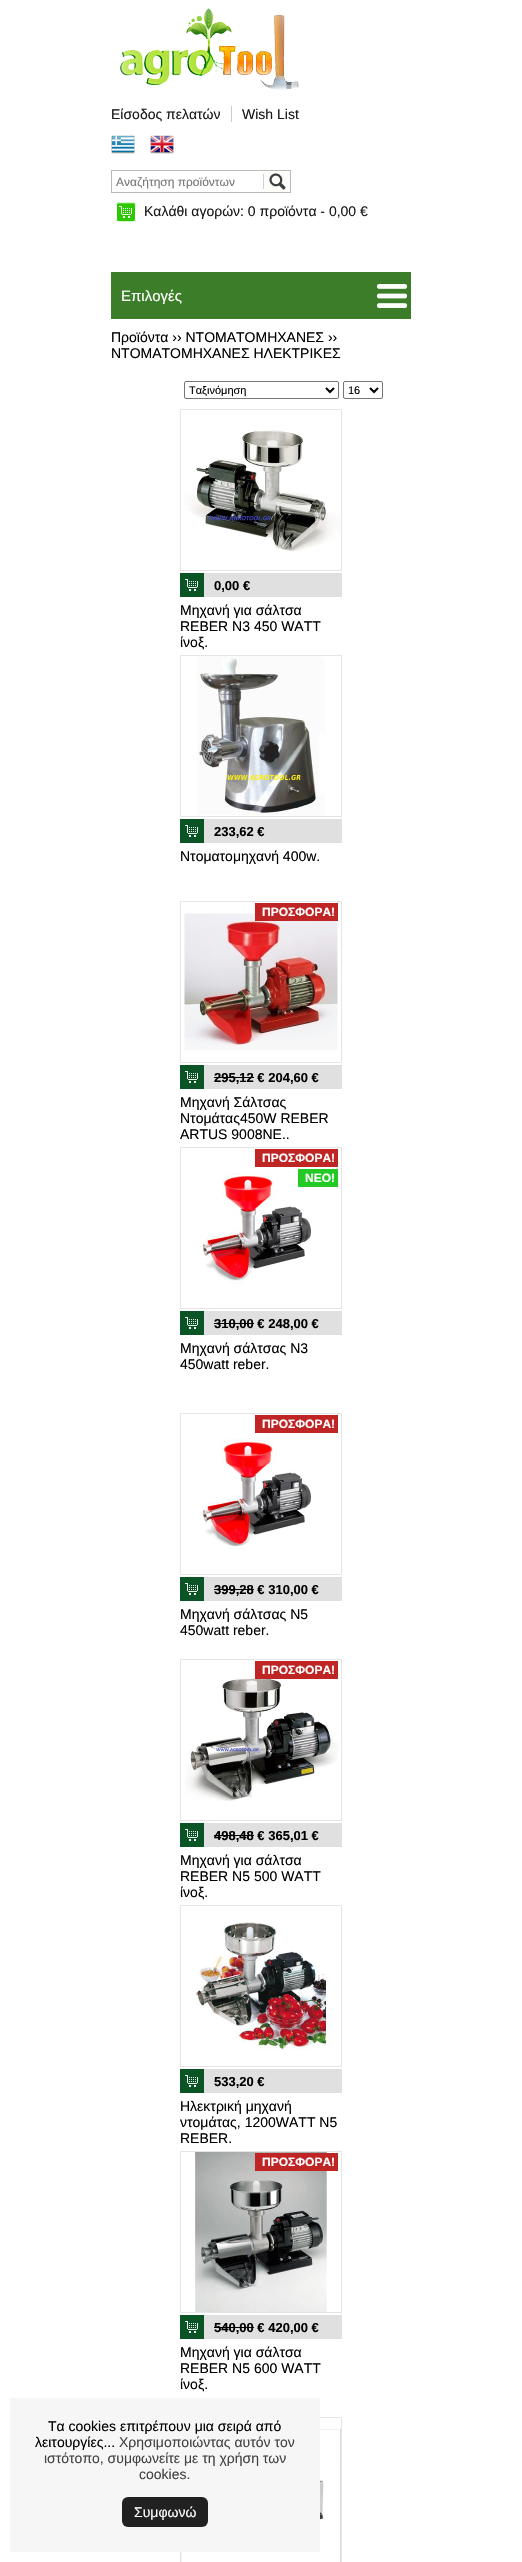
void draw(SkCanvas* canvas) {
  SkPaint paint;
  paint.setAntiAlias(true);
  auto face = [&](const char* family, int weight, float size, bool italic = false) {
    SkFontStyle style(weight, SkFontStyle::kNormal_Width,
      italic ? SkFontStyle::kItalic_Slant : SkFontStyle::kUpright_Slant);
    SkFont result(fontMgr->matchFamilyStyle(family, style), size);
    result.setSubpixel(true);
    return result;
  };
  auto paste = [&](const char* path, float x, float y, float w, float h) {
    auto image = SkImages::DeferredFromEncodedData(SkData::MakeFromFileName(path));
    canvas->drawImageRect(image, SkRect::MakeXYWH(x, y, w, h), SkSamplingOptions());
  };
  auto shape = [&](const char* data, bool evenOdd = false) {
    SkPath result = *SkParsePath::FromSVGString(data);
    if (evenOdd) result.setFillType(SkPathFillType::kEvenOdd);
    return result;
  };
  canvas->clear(0xffffffff);
  paste("img/1.png", 120, 8, 179, 82);
  paint.setColor(0xffcccccc);
  canvas->drawRect(SkRect::MakeXYWH(231, 106, 1, 16), paint);
  paste("img/2.png", 111, 135, 24, 19);
  paste("img/3.png", 150, 135, 24, 19);
  paste("img/4.png", 111, 170, 155, 23);
  paste("img/5.png", 266, 170, 25, 23);
  paste("img/6.png", 116, 202, 20, 20);
  paint.setColor(0xff3c7d29);
  canvas->drawRect(SkRect::MakeXYWH(111, 272, 300, 47), paint);
  paste("img/7.png", 377, 284, 30, 24);
  paint.setStroke(true);
  paint.setStrokeWidth(1);
  paint.setColor(0xff767676);
  canvas->drawRoundRect(SkRect::MakeXYWH(184.5f, 381.5f, 154, 17), 1.5f, 1.5f, paint);
  paint.setStrokeWidth(2);
  paint.setColor(0xff000000);
  canvas->drawPath(shape("M326 388L330 392L334 388"), paint);
  paint.setStrokeWidth(1);
  paint.setColor(0xff767676);
  canvas->drawRoundRect(SkRect::MakeXYWH(343.5f, 381.5f, 39, 17), 1.5f, 1.5f, paint);
  paint.setStrokeWidth(2);
  paint.setColor(0xff000000);
  canvas->drawPath(shape("M370 388L374 392L378 388"), paint);
  paint.setStrokeWidth(1);
  paint.setColor(0xffe5e5e5);
  canvas->drawRect(SkRect::MakeXYWH(180.5f, 409.5f, 161, 161), paint);
  paste("img/8.png", 184, 430, 157, 122);
  paint.setStroke(false);
  paint.setColor(0xffe0e0e0);
  canvas->drawRect(SkRect::MakeXYWH(204, 573, 138, 24), paint);
  paste("img/9.png", 180, 573, 24, 24);
  paint.setStroke(true);
  paint.setColor(0xffe5e5e5);
  canvas->drawRect(SkRect::MakeXYWH(180.5f, 655.5f, 161, 161), paint);
  paste("img/10.png", 197, 656, 128, 160);
  paint.setStroke(false);
  paint.setColor(0xffe0e0e0);
  canvas->drawRect(SkRect::MakeXYWH(204, 819, 138, 24), paint);
  paste("img/9.png", 180, 819, 24, 24);
  paint.setStroke(true);
  paint.setColor(0xffe5e5e5);
  canvas->drawRect(SkRect::MakeXYWH(180.5f, 901.5f, 161, 161), paint);
  paste("img/11.png", 184, 913, 154, 138);
  paint.setStroke(false);
  paint.setColor(0xffbe2524);
  canvas->drawRect(SkRect::MakeXYWH(255, 903, 83, 18), paint);
  paint.setColor(0xffe0e0e0);
  canvas->drawRect(SkRect::MakeXYWH(204, 1065, 138, 24), paint);
  paste("img/9.png", 180, 1065, 24, 24);
  paint.setColor(0xff000000);
  canvas->drawRect(SkRect::MakeXYWH(214, 1077, 40, 1), paint);
  paint.setStroke(true);
  paint.setColor(0xffe5e5e5);
  canvas->drawRect(SkRect::MakeXYWH(180.5f, 1147.5f, 161, 161), paint);
  paint.setStroke(false);
  paint.setColor(0xffbe2524);
  canvas->drawRect(SkRect::MakeXYWH(255, 1149, 83, 18), paint);
  paste("img/12.png", 202, 1172, 110, 112);
  paint.setColor(0xff25c926);
  canvas->drawRect(SkRect::MakeXYWH(298, 1169, 40, 18), paint);
  paint.setColor(0xffe0e0e0);
  canvas->drawRect(SkRect::MakeXYWH(204, 1311, 138, 24), paint);
  paste("img/9.png", 180, 1311, 24, 24);
  paint.setColor(0xff000000);
  canvas->drawRect(SkRect::MakeXYWH(214, 1323, 40, 1), paint);
  paint.setStroke(true);
  paint.setColor(0xffe5e5e5);
  canvas->drawRect(SkRect::MakeXYWH(180.5f, 1413.5f, 161, 161), paint);
  paint.setStroke(false);
  paint.setColor(0xffbe2524);
  canvas->drawRect(SkRect::MakeXYWH(255, 1415, 83, 18), paint);
  paste("img/12.png", 202, 1438, 110, 112);
  paint.setColor(0xffe0e0e0);
  canvas->drawRect(SkRect::MakeXYWH(204, 1577, 138, 24), paint);
  paste("img/9.png", 180, 1577, 24, 24);
  paint.setColor(0xff000000);
  canvas->drawRect(SkRect::MakeXYWH(214, 1589, 40, 1), paint);
  paint.setStroke(true);
  paint.setColor(0xffe5e5e5);
  canvas->drawRect(SkRect::MakeXYWH(180.5f, 1659.5f, 161, 161), paint);
  paste("img/13.png", 185, 1676, 154, 125);
  paint.setStroke(false);
  paint.setColor(0xffbe2524);
  canvas->drawRect(SkRect::MakeXYWH(255, 1661, 83, 18), paint);
  paint.setColor(0xffe0e0e0);
  canvas->drawRect(SkRect::MakeXYWH(204, 1823, 138, 24), paint);
  paste("img/9.png", 180, 1823, 24, 24);
  paint.setColor(0xff000000);
  canvas->drawRect(SkRect::MakeXYWH(214, 1835, 40, 1), paint);
  paint.setStroke(true);
  paint.setColor(0xffe5e5e5);
  canvas->drawRect(SkRect::MakeXYWH(180.5f, 1905.5f, 161, 161), paint);
  paste("img/14.png", 196, 1922, 137, 128);
  paint.setStroke(false);
  paint.setColor(0xffe0e0e0);
  canvas->drawRect(SkRect::MakeXYWH(204, 2069, 138, 24), paint);
  paste("img/9.png", 180, 2069, 24, 24);
  paint.setStroke(true);
  paint.setColor(0xffe5e5e5);
  canvas->drawRect(SkRect::MakeXYWH(180.5f, 2151.5f, 161, 161), paint);
  paste("img/15.png", 195, 2152, 132, 160);
  paint.setStroke(false);
  paint.setColor(0xffbe2524);
  canvas->drawRect(SkRect::MakeXYWH(255, 2153, 83, 18), paint);
  paint.setColor(0xffe0e0e0);
  canvas->drawRect(SkRect::MakeXYWH(204, 2315, 138, 24), paint);
  paste("img/9.png", 180, 2315, 24, 24);
  paint.setColor(0xff000000);
  canvas->drawRect(SkRect::MakeXYWH(214, 2327, 40, 1), paint);
  paint.setStroke(true);
  paint.setColor(0xffe5e5e5);
  canvas->drawRect(SkRect::MakeXYWH(180.5f, 2417.5f, 161, 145), paint);
  paste("img/16.png", 181, 2429, 160, 133);
  paint.setStroke(false);
  paint.setColor(0xfff6f6f6);
  canvas->drawRect(SkRect::MakeXYWH(10, 2398, 310, 154), paint);
  paint.setColor(0xff212121);
  canvas->drawRoundRect(SkRect::MakeXYWH(122, 2497, 86, 30), 6, 6, paint);
  auto f0 = face("Liberation Sans", 400, 14);
  paint.setColor(0xff181818);
  canvas->drawString("Είσοδος πελατών", 111, 119, f0, paint);
  canvas->drawString("Wish List", 242, 119, f0, paint);
  auto f1 = face("Liberation Sans", 400, 12);
  paint.setColor(0xff757575);
  canvas->drawString("Αναζήτηση προϊόντων", 116, 186, f1, paint);
  paint.setColor(0xff181818);
  canvas->drawString("Καλάθι αγορών: 0 προϊόντα - 0,00 €", 144, 216, f0, paint);
  auto f2 = face("Liberation Sans", 400, 15);
  paint.setColor(0xffffffff);
  canvas->drawString("Επιλογές", 121, 301, f2, paint);
  paint.setColor(0xff000000);
  canvas->drawString("Προϊόντα ›› ΝΤΟΜΑΤΟΜΗΧΑΝΕΣ ››", 111, 342, f0, paint);
  canvas->drawString("ΝΤΟΜΑΤΟΜΗΧΑΝΕΣ ΗΛΕΚΤΡΙΚΕΣ", 111, 358, f0, paint);
  auto f3 = face("Liberation Sans", 400, 11);
  canvas->drawString("Ταξινόμηση", 189, 394, f3, paint);
  canvas->drawString("16", 348, 394, f3, paint);
  auto f4 = face("Liberation Sans", 700, 13);
  canvas->drawString("0,00 €", 214, 590, f4, paint);
  {
    const struct { const char* s; float x, y; } items[] = {
      {"Μηχανή για σάλτσα", 180, 615},
      {"REBER N3 450 WATT", 180, 631},
      {"ίνοξ.", 180, 647},
    };
    for (auto [s, x, y] : items) {
      canvas->drawString(s, x, y, f0, paint);
    }
  }
  canvas->drawString("233,62 €", 214, 836, f4, paint);
  canvas->drawString("Ντοματομηχανή 400w.", 180, 861, f0, paint);
  auto f5 = face("Liberation Sans", 700, 12);
  paint.setColor(0xffffffff);
  canvas->drawString("ΠΡΟΣΦΟΡΑ!", 262, 916, f5, paint);
  paint.setColor(0xff000000);
  canvas->drawString("295,12 € 204,60 €", 214, 1082, f4, paint);
  {
    const struct { const char* s; float x, y; } items[] = {
      {"Μηχανή Σάλτσας", 180, 1107},
      {"Ντομάτας450W REBER", 180, 1123},
      {"ARTUS 9008NE..", 180, 1139},
    };
    for (auto [s, x, y] : items) {
      canvas->drawString(s, x, y, f0, paint);
    }
  }
  paint.setColor(0xffffffff);
  canvas->drawString("ΠΡΟΣΦΟΡΑ!", 262, 1162, f5, paint);
  canvas->drawString("ΝΕΟ!", 305, 1182, f5, paint);
  paint.setColor(0xff000000);
  canvas->drawString("310,00 € 248,00 €", 214, 1328, f4, paint);
  canvas->drawString("Μηχανή σάλτσας N3", 180, 1353, f0, paint);
  canvas->drawString("450watt reber.", 180, 1369, f0, paint);
  paint.setColor(0xffffffff);
  canvas->drawString("ΠΡΟΣΦΟΡΑ!", 262, 1428, f5, paint);
  paint.setColor(0xff000000);
  canvas->drawString("399,28 € 310,00 €", 214, 1594, f4, paint);
  canvas->drawString("Μηχανή σάλτσας N5", 180, 1619, f0, paint);
  canvas->drawString("450watt reber.", 180, 1635, f0, paint);
  paint.setColor(0xffffffff);
  canvas->drawString("ΠΡΟΣΦΟΡΑ!", 262, 1674, f5, paint);
  paint.setColor(0xff000000);
  canvas->drawString("498,48 € 365,01 €", 214, 1840, f4, paint);
  {
    const struct { const char* s; float x, y; } items[] = {
      {"Μηχανή για σάλτσα", 180, 1865},
      {"REBER N5 500 WATT", 180, 1881},
      {"ίνοξ.", 180, 1897},
    };
    for (auto [s, x, y] : items) {
      canvas->drawString(s, x, y, f0, paint);
    }
  }
  canvas->drawString("533,20 €", 214, 2086, f4, paint);
  {
    const struct { const char* s; float x, y; } items[] = {
      {"Ηλεκτρική μηχανή", 180, 2111},
      {"ντομάτας, 1200WATT Ν5", 180, 2127},
      {"REBER.", 180, 2143},
    };
    for (auto [s, x, y] : items) {
      canvas->drawString(s, x, y, f0, paint);
    }
  }
  paint.setColor(0xffffffff);
  canvas->drawString("ΠΡΟΣΦΟΡΑ!", 262, 2166, f5, paint);
  paint.setColor(0xff000000);
  canvas->drawString("540,00 € 420,00 €", 214, 2332, f4, paint);
  {
    const struct { const char* s; float x, y; } items[] = {
      {"Μηχανή για σάλτσα", 180, 2357},
      {"REBER N5 600 WATT", 180, 2373},
      {"ίνοξ.", 180, 2389},
      {"Τα cookies επιτρέπουν μια σειρά από", 48, 2431},
      {"λειτουργίες...", 35, 2447},
    };
    for (auto [s, x, y] : items) {
      canvas->drawString(s, x, y, f0, paint);
    }
  }
  paint.setColor(0xff424242);
  {
    const struct { const char* s; float x, y; } items[] = {
      {"Χρησιμοποιώντας αυτόν τον", 119, 2447},
      {"ιστότοπο, συμφωνείτε με τη χρήση των", 44, 2463},
      {"cookies.", 139, 2479},
    };
    for (auto [s, x, y] : items) {
      canvas->drawString(s, x, y, f0, paint);
    }
  }
  paint.setColor(0xffffffff);
  canvas->drawString("Συμφωνώ", 134, 2517, f0, paint);
}
